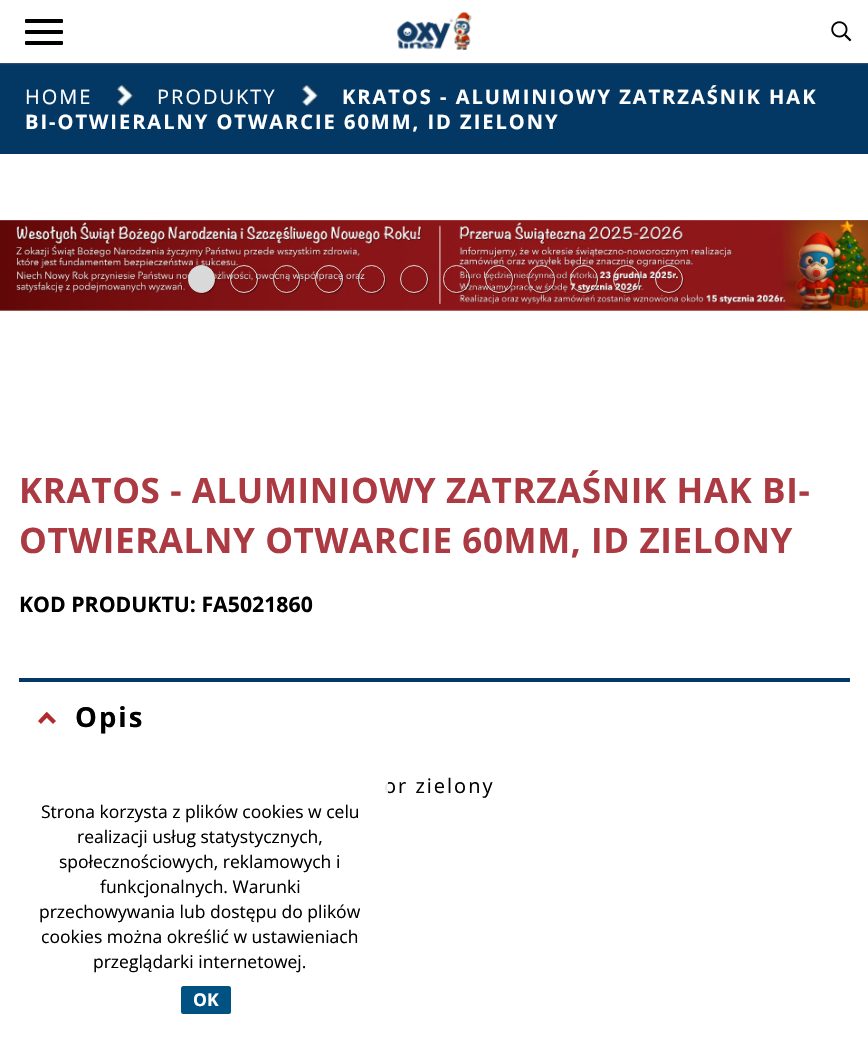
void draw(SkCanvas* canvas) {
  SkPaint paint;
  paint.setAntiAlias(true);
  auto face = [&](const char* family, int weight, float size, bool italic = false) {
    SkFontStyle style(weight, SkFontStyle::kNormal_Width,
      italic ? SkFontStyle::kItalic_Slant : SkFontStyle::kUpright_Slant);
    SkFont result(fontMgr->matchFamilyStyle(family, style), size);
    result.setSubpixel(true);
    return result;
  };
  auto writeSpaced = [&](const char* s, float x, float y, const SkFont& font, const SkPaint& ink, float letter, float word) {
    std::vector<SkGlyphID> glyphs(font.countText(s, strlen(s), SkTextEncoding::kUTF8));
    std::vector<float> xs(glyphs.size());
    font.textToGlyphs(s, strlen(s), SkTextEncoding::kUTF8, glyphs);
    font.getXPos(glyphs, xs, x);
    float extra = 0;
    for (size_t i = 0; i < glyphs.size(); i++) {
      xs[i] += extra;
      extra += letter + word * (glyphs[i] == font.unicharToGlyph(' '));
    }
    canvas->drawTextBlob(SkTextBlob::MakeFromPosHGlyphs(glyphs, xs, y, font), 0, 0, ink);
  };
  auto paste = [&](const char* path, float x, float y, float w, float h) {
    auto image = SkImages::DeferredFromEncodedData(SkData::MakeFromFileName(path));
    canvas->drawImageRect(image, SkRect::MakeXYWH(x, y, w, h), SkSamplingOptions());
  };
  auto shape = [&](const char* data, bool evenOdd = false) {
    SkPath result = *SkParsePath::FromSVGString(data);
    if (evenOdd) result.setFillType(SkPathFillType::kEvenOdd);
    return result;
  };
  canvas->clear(0xffffffff);
  paint.setColor(0xff033864);
  canvas->drawRect(SkRect::MakeXYWH(0, 63, 868, 91), paint);
  paint.setColor(0xff808080);
  paint.setMaskFilter(SkMaskFilter::MakeBlur(kNormal_SkBlurStyle, 1));
  canvas->drawRect(SkRect::MakeXYWH(0, 0, 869, 63), paint);
  paint.setMaskFilter(nullptr);
  paint.setColor(0xffffffff);
  canvas->drawRect(SkRect::MakeXYWH(0, 0, 868, 63), paint);
  paint.setColor(0xff000000);
  canvas->drawRoundRect(SkRect::MakeXYWH(25, 19, 38, 4), 1, 1, paint);
  canvas->drawRoundRect(SkRect::MakeXYWH(25, 30, 38, 4), 1, 1, paint);
  canvas->drawRoundRect(SkRect::MakeXYWH(25, 41, 38, 4), 1, 1, paint);
  paste("img/1.png", 397, 12, 75, 38);
  paste("img/2.png", 831, 21, 21, 21);
  paste("img/3.png", 117, 85, 17, 22);
  paste("img/3.png", 302, 85, 17, 22);
  paste("img/4.png", 0, 220, 868, 91);
  paint.setColor(0x4d000000);
  paint.setMaskFilter(SkMaskFilter::MakeBlur(kNormal_SkBlurStyle, 0.5f));
  canvas->drawRoundRect(SkRect::MakeXYWH(189, 266, 27, 28), 13.5f, 13.5f, paint);
  paint.setMaskFilter(nullptr);
  paint.setColor(0xffd9d9d9);
  canvas->drawRoundRect(SkRect::MakeXYWH(188.5f, 265.5f, 26, 27), 13, 13, paint);
  paint.setStroke(true);
  paint.setStrokeWidth(1);
  canvas->drawRoundRect(SkRect::MakeXYWH(188.5f, 265.5f, 26, 27), 13, 13, paint);
  canvas->save();
  canvas->clipPath(shape("M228 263H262V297H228ZM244 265C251.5 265 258 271.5 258 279C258 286.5 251.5 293 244 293C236.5 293 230 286.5 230 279C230 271.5 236.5 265 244 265Z", true), true);
  paint.setStroke(false);
  paint.setColor(0x4d000000);
  paint.setMaskFilter(SkMaskFilter::MakeBlur(kNormal_SkBlurStyle, 0.5f));
  canvas->drawRoundRect(SkRect::MakeXYWH(231, 266, 28, 28), 14, 14, paint);
  paint.setMaskFilter(nullptr);
  canvas->restore();
  paint.setStroke(true);
  paint.setColor(0xffd9d9d9);
  canvas->drawCircle(244, 279, 13.5f, paint);
  canvas->save();
  canvas->clipPath(shape("M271 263H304V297H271ZM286.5 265C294 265 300 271 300 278.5V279.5C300 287 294 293 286.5 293C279 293 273 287 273 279.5V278.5C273 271 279 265 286.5 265Z", true), true);
  paint.setStroke(false);
  paint.setColor(0x4d000000);
  paint.setMaskFilter(SkMaskFilter::MakeBlur(kNormal_SkBlurStyle, 0.5f));
  canvas->drawRoundRect(SkRect::MakeXYWH(274, 266, 27, 28), 13.5f, 13.5f, paint);
  paint.setMaskFilter(nullptr);
  canvas->restore();
  paint.setStroke(true);
  paint.setColor(0xffd9d9d9);
  canvas->drawRoundRect(SkRect::MakeXYWH(273.5f, 265.5f, 26, 27), 13, 13, paint);
  canvas->save();
  canvas->clipPath(shape("M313 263H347V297H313ZM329 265C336.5 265 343 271.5 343 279C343 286.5 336.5 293 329 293C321.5 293 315 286.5 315 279C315 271.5 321.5 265 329 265Z", true), true);
  paint.setStroke(false);
  paint.setColor(0x4d000000);
  paint.setMaskFilter(SkMaskFilter::MakeBlur(kNormal_SkBlurStyle, 0.5f));
  canvas->drawRoundRect(SkRect::MakeXYWH(316, 266, 28, 28), 14, 14, paint);
  paint.setMaskFilter(nullptr);
  canvas->restore();
  paint.setStroke(true);
  paint.setColor(0xffd9d9d9);
  canvas->drawCircle(329, 279, 13.5f, paint);
  canvas->save();
  canvas->clipPath(shape("M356 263H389V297H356ZM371.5 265C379 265 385 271 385 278.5V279.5C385 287 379 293 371.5 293C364 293 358 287 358 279.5V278.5C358 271 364 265 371.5 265Z", true), true);
  paint.setStroke(false);
  paint.setColor(0x4d000000);
  paint.setMaskFilter(SkMaskFilter::MakeBlur(kNormal_SkBlurStyle, 0.5f));
  canvas->drawRoundRect(SkRect::MakeXYWH(359, 266, 27, 28), 13.5f, 13.5f, paint);
  paint.setMaskFilter(nullptr);
  canvas->restore();
  paint.setStroke(true);
  paint.setColor(0xffd9d9d9);
  canvas->drawRoundRect(SkRect::MakeXYWH(358.5f, 265.5f, 26, 27), 13, 13, paint);
  canvas->save();
  canvas->clipPath(shape("M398 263H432V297H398ZM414 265C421.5 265 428 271.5 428 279C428 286.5 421.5 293 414 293C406.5 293 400 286.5 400 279C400 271.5 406.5 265 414 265Z", true), true);
  paint.setStroke(false);
  paint.setColor(0x4d000000);
  paint.setMaskFilter(SkMaskFilter::MakeBlur(kNormal_SkBlurStyle, 0.5f));
  canvas->drawRoundRect(SkRect::MakeXYWH(401, 266, 28, 28), 14, 14, paint);
  paint.setMaskFilter(nullptr);
  canvas->restore();
  paint.setStroke(true);
  paint.setColor(0xffd9d9d9);
  canvas->drawCircle(414, 279, 13.5f, paint);
  canvas->save();
  canvas->clipPath(shape("M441 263H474V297H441ZM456.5 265C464 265 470 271 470 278.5V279.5C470 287 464 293 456.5 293C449 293 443 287 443 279.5V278.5C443 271 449 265 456.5 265Z", true), true);
  paint.setStroke(false);
  paint.setColor(0x4d000000);
  paint.setMaskFilter(SkMaskFilter::MakeBlur(kNormal_SkBlurStyle, 0.5f));
  canvas->drawRoundRect(SkRect::MakeXYWH(444, 266, 27, 28), 13.5f, 13.5f, paint);
  paint.setMaskFilter(nullptr);
  canvas->restore();
  paint.setStroke(true);
  paint.setColor(0xffd9d9d9);
  canvas->drawRoundRect(SkRect::MakeXYWH(443.5f, 265.5f, 26, 27), 13, 13, paint);
  canvas->save();
  canvas->clipPath(shape("M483 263H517V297H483ZM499 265C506.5 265 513 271.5 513 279C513 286.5 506.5 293 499 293C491.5 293 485 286.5 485 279C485 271.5 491.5 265 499 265Z", true), true);
  paint.setStroke(false);
  paint.setColor(0x4d000000);
  paint.setMaskFilter(SkMaskFilter::MakeBlur(kNormal_SkBlurStyle, 0.5f));
  canvas->drawRoundRect(SkRect::MakeXYWH(486, 266, 28, 28), 14, 14, paint);
  paint.setMaskFilter(nullptr);
  canvas->restore();
  paint.setStroke(true);
  paint.setColor(0xffd9d9d9);
  canvas->drawCircle(499, 279, 13.5f, paint);
  canvas->save();
  canvas->clipPath(shape("M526 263H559V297H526ZM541.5 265C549 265 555 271 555 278.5V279.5C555 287 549 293 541.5 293C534 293 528 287 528 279.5V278.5C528 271 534 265 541.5 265Z", true), true);
  paint.setStroke(false);
  paint.setColor(0x4d000000);
  paint.setMaskFilter(SkMaskFilter::MakeBlur(kNormal_SkBlurStyle, 0.5f));
  canvas->drawRoundRect(SkRect::MakeXYWH(529, 266, 27, 28), 13.5f, 13.5f, paint);
  paint.setMaskFilter(nullptr);
  canvas->restore();
  paint.setStroke(true);
  paint.setColor(0xffd9d9d9);
  canvas->drawRoundRect(SkRect::MakeXYWH(528.5f, 265.5f, 26, 27), 13, 13, paint);
  canvas->save();
  canvas->clipPath(shape("M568 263H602V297H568ZM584 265C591.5 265 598 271.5 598 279C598 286.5 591.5 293 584 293C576.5 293 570 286.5 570 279C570 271.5 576.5 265 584 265Z", true), true);
  paint.setStroke(false);
  paint.setColor(0x4d000000);
  paint.setMaskFilter(SkMaskFilter::MakeBlur(kNormal_SkBlurStyle, 0.5f));
  canvas->drawRoundRect(SkRect::MakeXYWH(571, 266, 28, 28), 14, 14, paint);
  paint.setMaskFilter(nullptr);
  canvas->restore();
  paint.setStroke(true);
  paint.setColor(0xffd9d9d9);
  canvas->drawCircle(584, 279, 13.5f, paint);
  canvas->save();
  canvas->clipPath(shape("M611 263H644V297H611ZM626.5 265C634 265 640 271 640 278.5V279.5C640 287 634 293 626.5 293C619 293 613 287 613 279.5V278.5C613 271 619 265 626.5 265Z", true), true);
  paint.setStroke(false);
  paint.setColor(0x4d000000);
  paint.setMaskFilter(SkMaskFilter::MakeBlur(kNormal_SkBlurStyle, 0.5f));
  canvas->drawRoundRect(SkRect::MakeXYWH(614, 266, 27, 28), 13.5f, 13.5f, paint);
  paint.setMaskFilter(nullptr);
  canvas->restore();
  paint.setStroke(true);
  paint.setColor(0xffd9d9d9);
  canvas->drawRoundRect(SkRect::MakeXYWH(613.5f, 265.5f, 26, 27), 13, 13, paint);
  canvas->save();
  canvas->clipPath(shape("M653 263H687V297H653ZM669 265C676.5 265 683 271.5 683 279C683 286.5 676.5 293 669 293C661.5 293 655 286.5 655 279C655 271.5 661.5 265 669 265Z", true), true);
  paint.setStroke(false);
  paint.setColor(0x4d000000);
  paint.setMaskFilter(SkMaskFilter::MakeBlur(kNormal_SkBlurStyle, 0.5f));
  canvas->drawRoundRect(SkRect::MakeXYWH(656, 266, 28, 28), 14, 14, paint);
  paint.setMaskFilter(nullptr);
  canvas->restore();
  paint.setStroke(true);
  paint.setColor(0xffd9d9d9);
  canvas->drawCircle(669, 279, 13.5f, paint);
  paint.setStroke(false);
  paint.setColor(0xff033967);
  canvas->drawRect(SkRect::MakeXYWH(19, 678, 831, 4), paint);
  paint.setColor(0xffb22c2d);
  canvas->drawPath(shape("M47 712L56 721L53 724L44 715Z"), paint);
  canvas->drawPath(shape("M38 721L46.5 712L49.5 715L41 724Z"), paint);
  paint.setColor(0xff005282);
  canvas->drawRoundRect(SkRect::MakeXYWH(181, 986, 50, 28), 2.5f, 2.5f, paint);
  auto f0 = face("Open Sans", 400, 20);
  paint.setColor(0xffffffff);
  writeSpaced("HOME", 25, 104, f0, paint, 2, 0);
  writeSpaced("PRODUKTY", 157, 104, f0, paint, 2, 0);
  auto f1 = face("Open Sans", 700, 20);
  writeSpaced("KRATOS - ALUMINIOWY ZATRZAŚNIK HAK", 342, 104, f1, paint, 2, 0);
  writeSpaced("BI-OTWIERALNY OTWARCIE 60MM, ID ZIELONY", 25, 129, f1, paint, 2, 0);
  auto f2 = face("Open Sans", 700, 35);
  paint.setColor(0xffac3a42);
  writeSpaced("KRATOS - ALUMINIOWY ZATRZAŚNIK HAK BI-", 19, 503, f2, paint, 0.6f, 0);
  writeSpaced("OTWIERALNY OTWARCIE 60MM, ID ZIELONY", 19, 553, f2, paint, 0.6f, 0);
  auto f3 = face("Open Sans", 700, 21.25f);
  paint.setColor(0xff000000);
  canvas->drawString("KOD PRODUKTU: FA5021860", 19, 612, f3, paint);
  auto f4 = face("Open Sans", 700, 27.5f);
  writeSpaced("Opis", 75, 727, f4, paint, 2, 0);
  writeSpaced("or zielony", 384, 793, f0, paint, 2, 0);
  paint.setColor(0xe6ffffff);
  canvas->drawRect(SkRect::MakeXYWH(385, 782, 3, 11), paint);
  auto f5 = face("Open Sans", 400, 17.5f);
  paint.setColor(0xff000000);
  {
    const struct { const char* s; float x, y; } items[] = {
      {"Strona korzysta z plików cookies w celu", 41, 818},
      {"realizacji usług statystycznych,", 77, 843},
      {"społecznościowych, reklamowych i", 59, 868},
      {"funkcjonalnych. Warunki", 100, 893},
      {"przechowywania lub dostępu do plików", 39, 918},
      {"cookies można określić w ustawieniach", 41, 943},
      {"przeglądarki internetowej.", 93, 968},
    };
    for (auto [s, x, y] : items) {
      canvas->drawString(s, x, y, f5, paint);
    }
  }
  auto f6 = face("Open Sans", 700, 17.5f);
  paint.setColor(0xffffffff);
  canvas->drawString("OK", 193, 1006, f6, paint);
}
